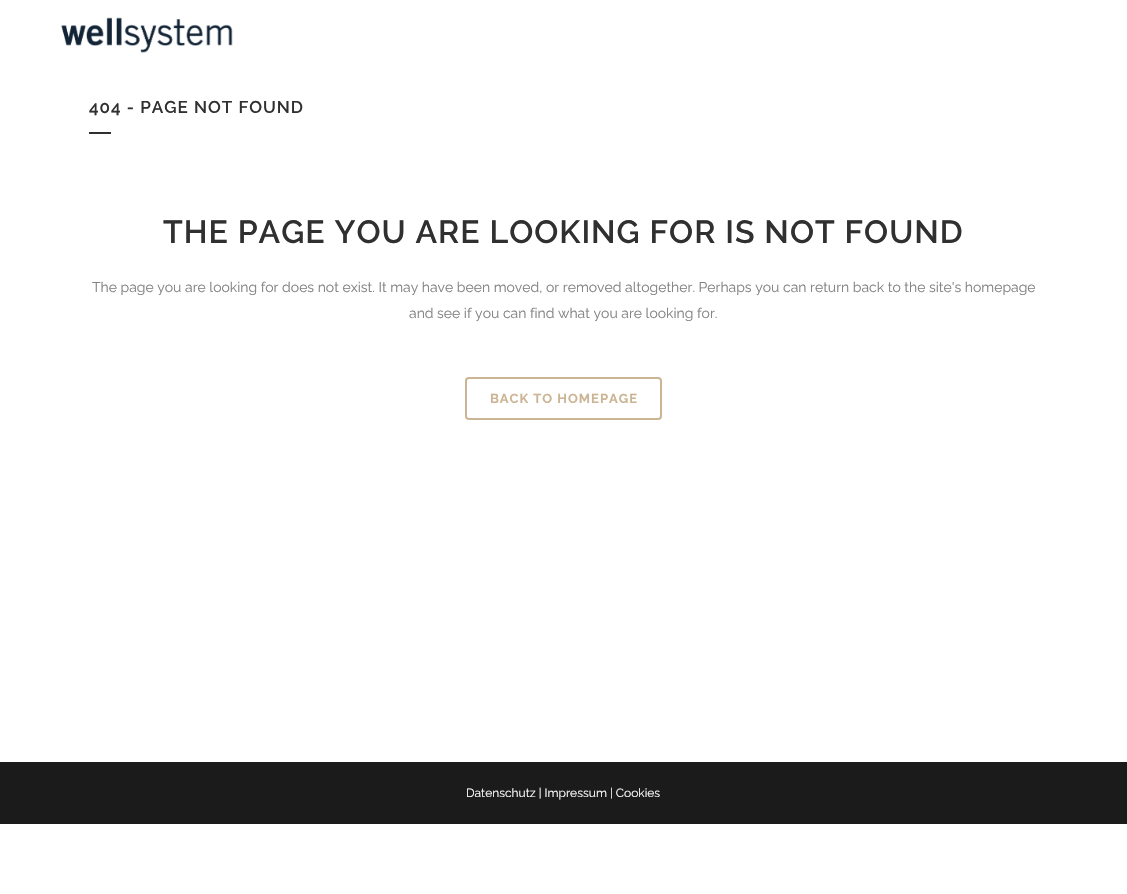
void draw(SkCanvas* canvas) {
  SkPaint paint;
  paint.setAntiAlias(true);
  auto face = [&](const char* family, int weight, float size, bool italic = false) {
    SkFontStyle style(weight, SkFontStyle::kNormal_Width,
      italic ? SkFontStyle::kItalic_Slant : SkFontStyle::kUpright_Slant);
    SkFont result(fontMgr->matchFamilyStyle(family, style), size);
    result.setSubpixel(true);
    return result;
  };
  auto writeSpaced = [&](const char* s, float x, float y, const SkFont& font, const SkPaint& ink, float letter, float word) {
    std::vector<SkGlyphID> glyphs(font.countText(s, strlen(s), SkTextEncoding::kUTF8));
    std::vector<float> xs(glyphs.size());
    font.textToGlyphs(s, strlen(s), SkTextEncoding::kUTF8, glyphs);
    font.getXPos(glyphs, xs, x);
    float extra = 0;
    for (size_t i = 0; i < glyphs.size(); i++) {
      xs[i] += extra;
      extra += letter + word * (glyphs[i] == font.unicharToGlyph(' '));
    }
    canvas->drawTextBlob(SkTextBlob::MakeFromPosHGlyphs(glyphs, xs, y, font), 0, 0, ink);
  };
  auto paste = [&](const char* path, float x, float y, float w, float h) {
    auto image = SkImages::DeferredFromEncodedData(SkData::MakeFromFileName(path));
    canvas->drawImageRect(image, SkRect::MakeXYWH(x, y, w, h), SkSamplingOptions());
  };
  canvas->clear(0xffffffff);
  paste("img/1.png", 61, 17, 172, 36);
  paint.setColor(0xff303030);
  canvas->drawRect(SkRect::MakeXYWH(89, 132, 22, 2), paint);
  paint.setStroke(true);
  paint.setStrokeWidth(2);
  paint.setColor(0xffccb595);
  canvas->drawRoundRect(SkRect::MakeXYWH(466, 378, 195, 41), 3, 3, paint);
  paint.setStroke(false);
  paint.setColor(0xff1b1b1b);
  canvas->drawRect(SkRect::MakeXYWH(0, 762, 1127, 62), paint);
  auto f0 = face("Raleway", 600, 17);
  paint.setColor(0xff303030);
  writeSpaced("404 - PAGE NOT FOUND", 89, 113, f0, paint, 1, 0);
  auto f1 = face("Raleway", 600, 32);
  writeSpaced("THE PAGE YOU ARE LOOKING FOR IS NOT FOUND", 163, 243, f1, paint, 1, 0);
  auto f2 = face("Raleway", 400, 14);
  paint.setColor(0xff818181);
  canvas->drawString("The page you are looking for does not exist. It may have been moved, or removed altogether. Perhaps you can return back to the site's homepage", 92, 292, f2, paint);
  canvas->drawString("and see if you can find what you are looking for.", 409, 318, f2, paint);
  auto f3 = face("Raleway", 700, 13);
  paint.setColor(0xffccb595);
  writeSpaced("BACK TO HOMEPAGE", 490, 403, f3, paint, 1, 0);
  auto f4 = face("Raleway", 400, 12);
  paint.setColor(0xffffffff);
  canvas->drawString("Datenschutz | Impressum | Cookies", 466, 797, f4, paint);
}
